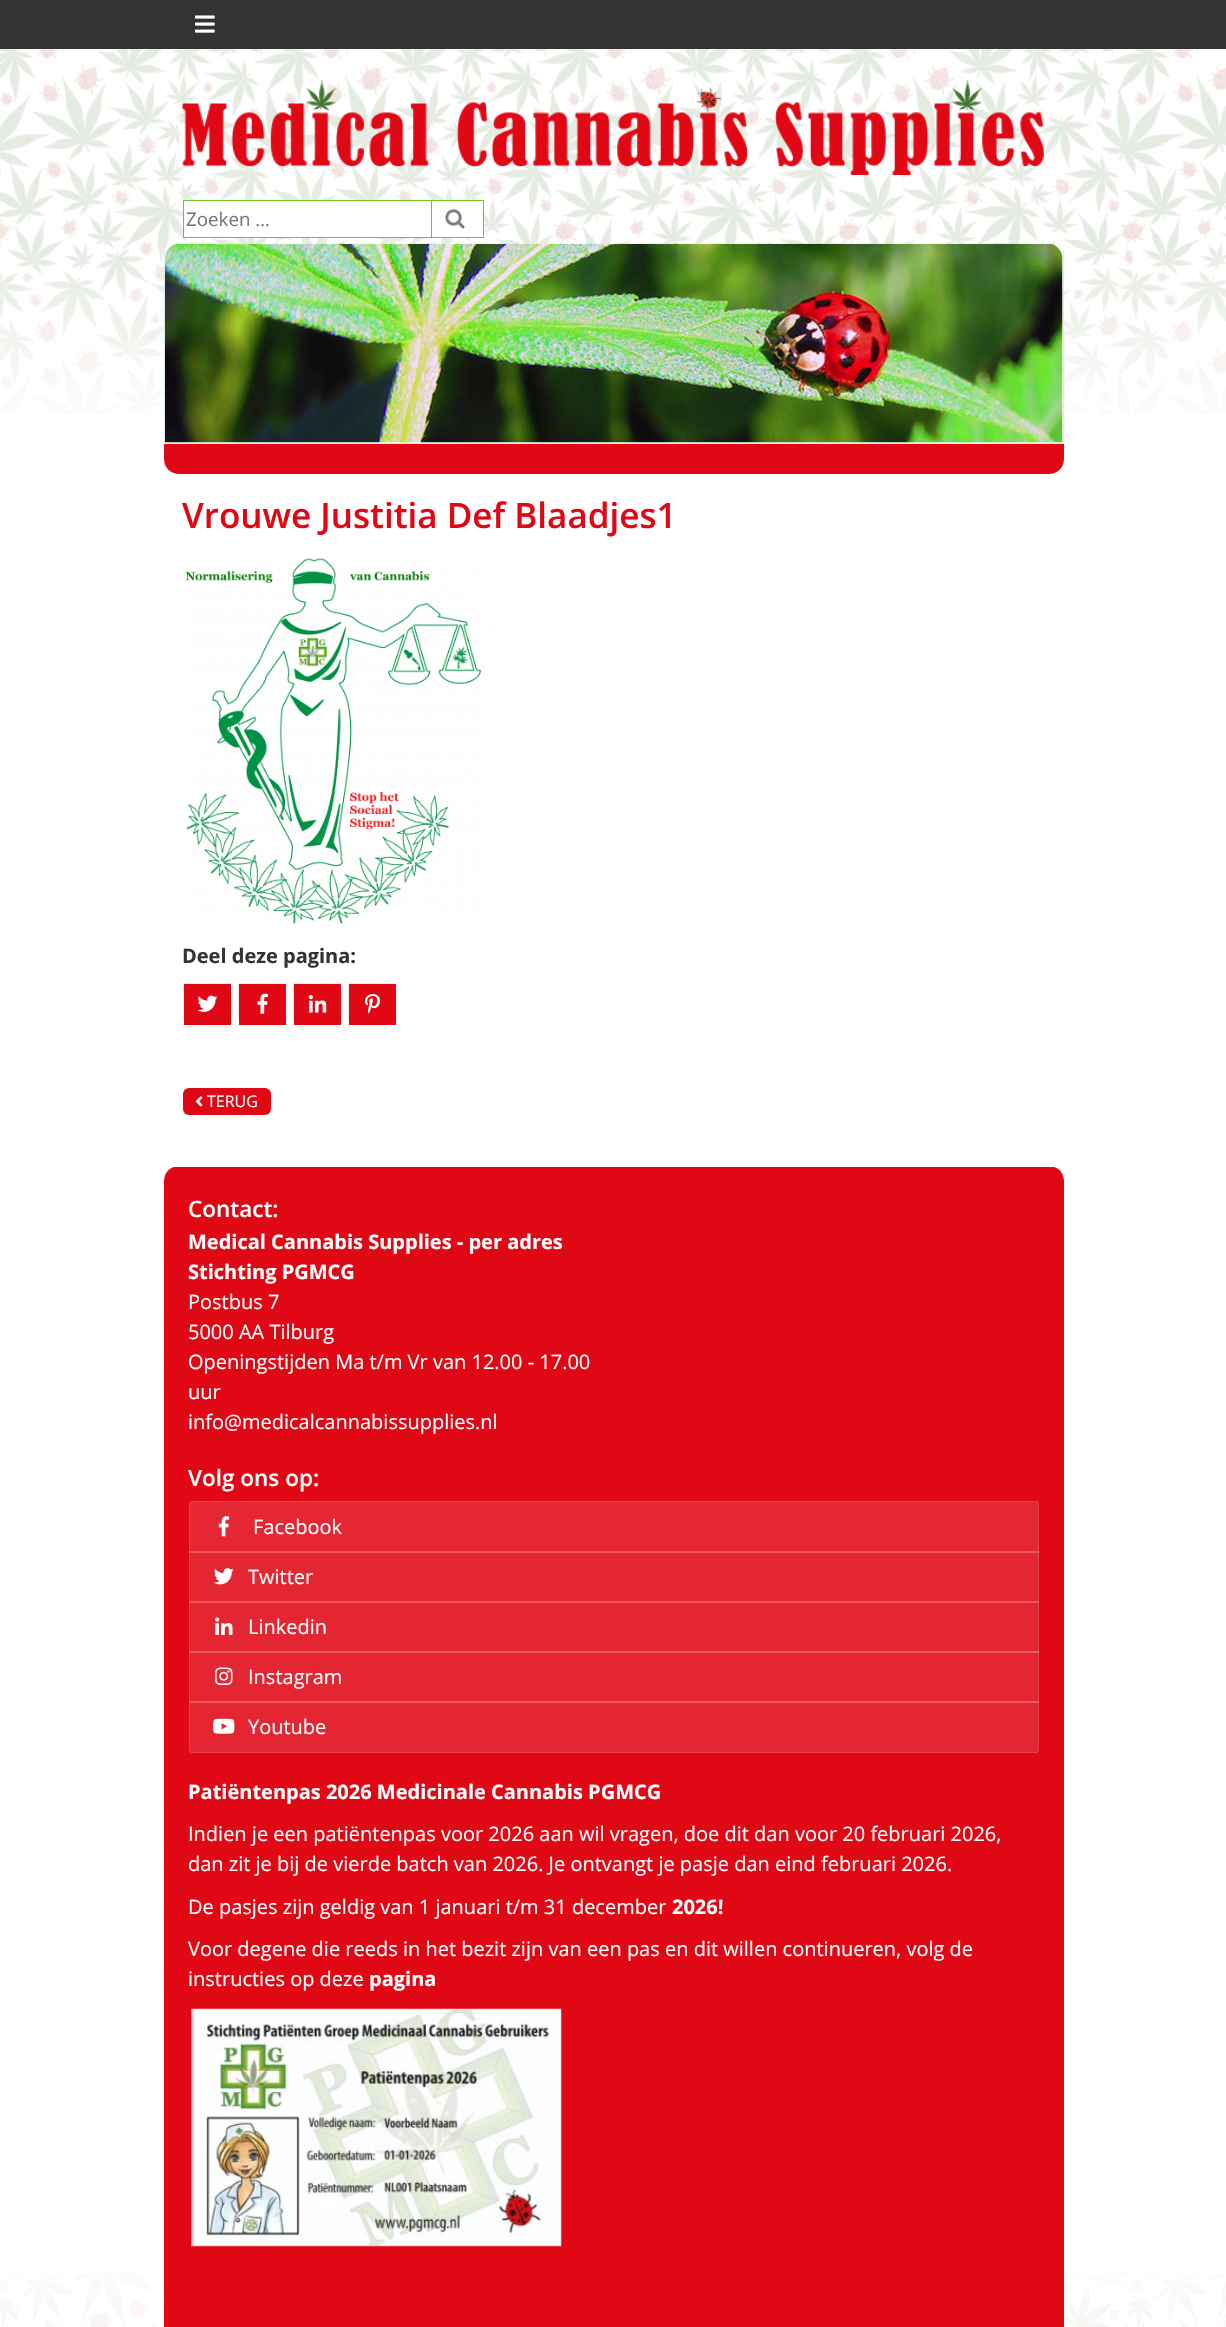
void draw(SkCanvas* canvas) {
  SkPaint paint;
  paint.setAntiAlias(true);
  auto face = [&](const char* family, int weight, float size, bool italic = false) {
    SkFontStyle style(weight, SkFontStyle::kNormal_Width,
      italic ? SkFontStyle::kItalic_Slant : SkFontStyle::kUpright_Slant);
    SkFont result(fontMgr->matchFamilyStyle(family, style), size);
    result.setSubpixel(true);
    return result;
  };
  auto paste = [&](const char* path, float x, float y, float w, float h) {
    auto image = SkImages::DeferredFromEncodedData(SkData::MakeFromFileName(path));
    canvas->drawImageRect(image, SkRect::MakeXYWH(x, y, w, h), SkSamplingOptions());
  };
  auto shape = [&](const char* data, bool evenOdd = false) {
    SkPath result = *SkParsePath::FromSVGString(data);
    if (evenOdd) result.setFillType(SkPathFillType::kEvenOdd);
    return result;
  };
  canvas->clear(0xffffffff);
  paste("img/1.png", 0, 49, 1226, 365);
  paint.setColor(0xff333333);
  canvas->drawRect(SkRect::MakeXYWH(0, 0, 1226, 49), paint);
  paste("img/2.png", 195, 15, 20, 18);
  paste("img/3.png", 182, 80, 862, 95);
  paint.setColor(0xffffffff);
  canvas->drawRect(SkRect::MakeXYWH(184, 201, 247, 36), paint);
  paint.setStroke(true);
  paint.setStrokeWidth(1);
  paint.setColor(0xff6ac823);
  canvas->drawRect(SkRect::MakeXYWH(183.5f, 200.5f, 249, 37), paint);
  paint.setStroke(false);
  paint.setColor(0xffffffff);
  canvas->drawRect(SkRect::MakeXYWH(432, 201, 51, 36), paint);
  paste("img/4.png", 445, 208, 20, 21);
  paint.setStroke(true);
  paint.setColor(0xff6ac823);
  canvas->drawRect(SkRect::MakeXYWH(431.5f, 200.5f, 52, 37), paint);
  paint.setStroke(false);
  {
    const struct { float x, y, w, h; SkColor color; } items[] = {
      {1063, 251, 1, 193, 0xffd8eded},
      {164, 443, 900, 1, 0xffd8eded},
      {164, 251, 1, 193, 0xffd8eded},
    };
    for (auto [x, y, w, h, color] : items) {
      paint.setColor(color);
      canvas->drawRect(SkRect::MakeXYWH(x, y, w, h), paint);
    }
  }
  paste("img/5.png", 165, 243, 898, 200);
  paint.setColor(0xffe10816);
  canvas->drawPath(shape("M164 444H1064V459C1064 467.5 1057.5 474 1049 474H179C170.5 474 164 467.5 164 459Z"), paint);
  paste("img/6.png", 185, 558, 296, 366);
  paint.setStroke(true);
  paint.setColor(0xffeeeeee);
  canvas->drawRect(SkRect::MakeXYWH(183.5f, 983.5f, 49, 36), paint);
  paint.setStroke(false);
  paint.setColor(0xffe10816);
  canvas->drawRect(SkRect::MakeXYWH(184, 984, 47, 41), paint);
  paste("img/7.png", 197, 995, 21, 17);
  paint.setStroke(true);
  paint.setColor(0xffeeeeee);
  canvas->drawRect(SkRect::MakeXYWH(238.5f, 983.5f, 49, 36), paint);
  paint.setStroke(false);
  paint.setColor(0xffe10816);
  canvas->drawRect(SkRect::MakeXYWH(239, 984, 47, 41), paint);
  paste("img/8.png", 257, 993, 11, 21);
  paint.setStroke(true);
  paint.setColor(0xffeeeeee);
  canvas->drawRect(SkRect::MakeXYWH(293.5f, 983.5f, 49, 36), paint);
  paint.setStroke(false);
  paint.setColor(0xffe10816);
  canvas->drawRect(SkRect::MakeXYWH(294, 984, 47, 41), paint);
  paste("img/9.png", 308, 995, 19, 18);
  paint.setStroke(true);
  paint.setColor(0xffeeeeee);
  canvas->drawRect(SkRect::MakeXYWH(348.5f, 983.5f, 49, 36), paint);
  paint.setStroke(false);
  paint.setColor(0xffe10816);
  canvas->drawRect(SkRect::MakeXYWH(349, 984, 47, 41), paint);
  paste("img/10.png", 365, 994, 15, 20);
  canvas->drawRoundRect(SkRect::MakeXYWH(183, 1088, 88, 27), 6, 6, paint);
  paste("img/11.png", 195, 1096, 8, 11);
  paste("img/12.png", 0, 2273, 1226, 54);
  canvas->drawPath(shape("M179 1166H1049C1057.5 1166 1064 1172.5 1064 1181V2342H164V1181C164 1172.5 170.5 1166 179 1166Z"), paint);
  paint.setColor(0xffffffff);
  canvas->drawRect(SkRect::MakeXYWH(171, 1166, 885, 1), paint);
  paint.setColor(0xffe52733);
  canvas->drawPath(shape("M192 1501H1036C1037.5 1501 1039 1502.5 1039 1504V1553H189V1504C189 1502.5 190.5 1501 192 1501Z"), paint);
  paint.setStroke(true);
  paint.setColor(0x1fffffff);
  canvas->drawPath(shape("M192 1501.5H1036C1037.5 1501.5 1038.5 1502.5 1038.5 1504V1552.5H189.5V1504C189.5 1502.5 190.5 1501.5 192 1501.5Z"), paint);
  paste("img/13.png", 218, 1516, 12, 21);
  paint.setStroke(false);
  canvas->drawRect(SkRect::MakeXYWH(189, 1551, 850, 52), paint);
  paint.setStroke(true);
  canvas->drawRect(SkRect::MakeXYWH(189.5f, 1551.5f, 849, 51), paint);
  paste("img/14.png", 214, 1568, 20, 17);
  paint.setStroke(false);
  canvas->drawRect(SkRect::MakeXYWH(189, 1601, 850, 52), paint);
  paint.setStroke(true);
  canvas->drawRect(SkRect::MakeXYWH(189.5f, 1601.5f, 849, 51), paint);
  paste("img/15.png", 215, 1617, 18, 18);
  paint.setStroke(false);
  canvas->drawRect(SkRect::MakeXYWH(189, 1651, 850, 52), paint);
  paint.setStroke(true);
  canvas->drawRect(SkRect::MakeXYWH(189.5f, 1651.5f, 849, 51), paint);
  paste("img/16.png", 215, 1667, 18, 18);
  paint.setStroke(false);
  canvas->drawPath(shape("M189 1701H1039V1750C1039 1751.5 1037.5 1753 1036 1753H192C190.5 1753 189 1751.5 189 1750Z"), paint);
  paint.setStroke(true);
  canvas->drawPath(shape("M189.5 1701.5H1038.5V1750C1038.5 1751.5 1037.5 1752.5 1036 1752.5H192C190.5 1752.5 189.5 1751.5 189.5 1750Z"), paint);
  paste("img/17.png", 213, 1718, 22, 16);
  paste("img/18.png", 191, 2008, 371, 239);
  auto f0 = face("Open Sans", 400, 18.75f);
  paint.setStroke(false);
  paint.setColor(0xff757575);
  canvas->drawString("Zoeken …", 186, 226, f0, paint);
  auto f1 = face("Open Sans", 600, 35);
  paint.setColor(0xffe10816);
  canvas->drawString("Vrouwe Justitia Def Blaadjes1", 182, 528, f1, paint);
  auto f2 = face("Open Sans", 700, 20);
  paint.setColor(0xff333333);
  canvas->drawString("Deel deze pagina:", 182, 963, f2, paint);
  auto f3 = face("Open Sans", 400, 16);
  paint.setColor(0xffffffff);
  canvas->drawString("TERUG", 207, 1107, f3, paint);
  auto f4 = face("Open Sans", 600, 22.5f);
  canvas->drawString("Contact:", 188, 1217, f4, paint);
  canvas->drawString("Medical Cannabis Supplies - per adres", 188, 1249, f2, paint);
  canvas->drawString("Stichting PGMCG", 188, 1279, f2, paint);
  auto f5 = face("Open Sans", 400, 20);
  {
    const struct { const char* s; float x, y; } items[] = {
      {"Postbus 7", 188, 1309},
      {"5000 AA Tilburg", 188, 1339},
      {"Openingstijden Ma t/m Vr van 12.00 - 17.00", 188, 1369},
      {"uur", 188, 1399},
      {"info@medicalcannabissupplies.nl", 188, 1429},
    };
    for (auto [s, x, y] : items) {
      canvas->drawString(s, x, y, f5, paint);
    }
  }
  canvas->drawString("Volg ons op:", 188, 1486, f4, paint);
  {
    const struct { const char* s; float x, y; } items[] = {
      {"Facebook", 253, 1534},
      {"Twitter", 248, 1584},
      {"Linkedin", 248, 1634},
      {"Instagram", 248, 1684},
      {"Youtube", 248, 1734},
    };
    for (auto [s, x, y] : items) {
      canvas->drawString(s, x, y, f5, paint);
    }
  }
  canvas->drawString("Patiëntenpas 2026 Medicinale Cannabis PGMCG", 188, 1799, f2, paint);
  {
    const struct { const char* s; float x, y; } items[] = {
      {"Indien je een patiëntenpas voor 2026 aan wil vragen, doe dit dan voor 20 februari 2026,", 188, 1841},
      {"dan zit je bij de vierde batch van 2026. Je ontvangt je pasje dan eind februari 2026.", 188, 1871},
      {"De pasjes zijn geldig van 1 januari t/m 31 december", 188, 1914},
    };
    for (auto [s, x, y] : items) {
      canvas->drawString(s, x, y, f5, paint);
    }
  }
  canvas->drawString("2026!", 672, 1914, f2, paint);
  canvas->drawString("Voor degene die reeds in het bezit zijn van een pas en dit willen continueren, volg de", 188, 1956, f5, paint);
  canvas->drawString("instructies op deze", 188, 1986, f5, paint);
  canvas->drawString("pagina", 369, 1986, f2, paint);
}
